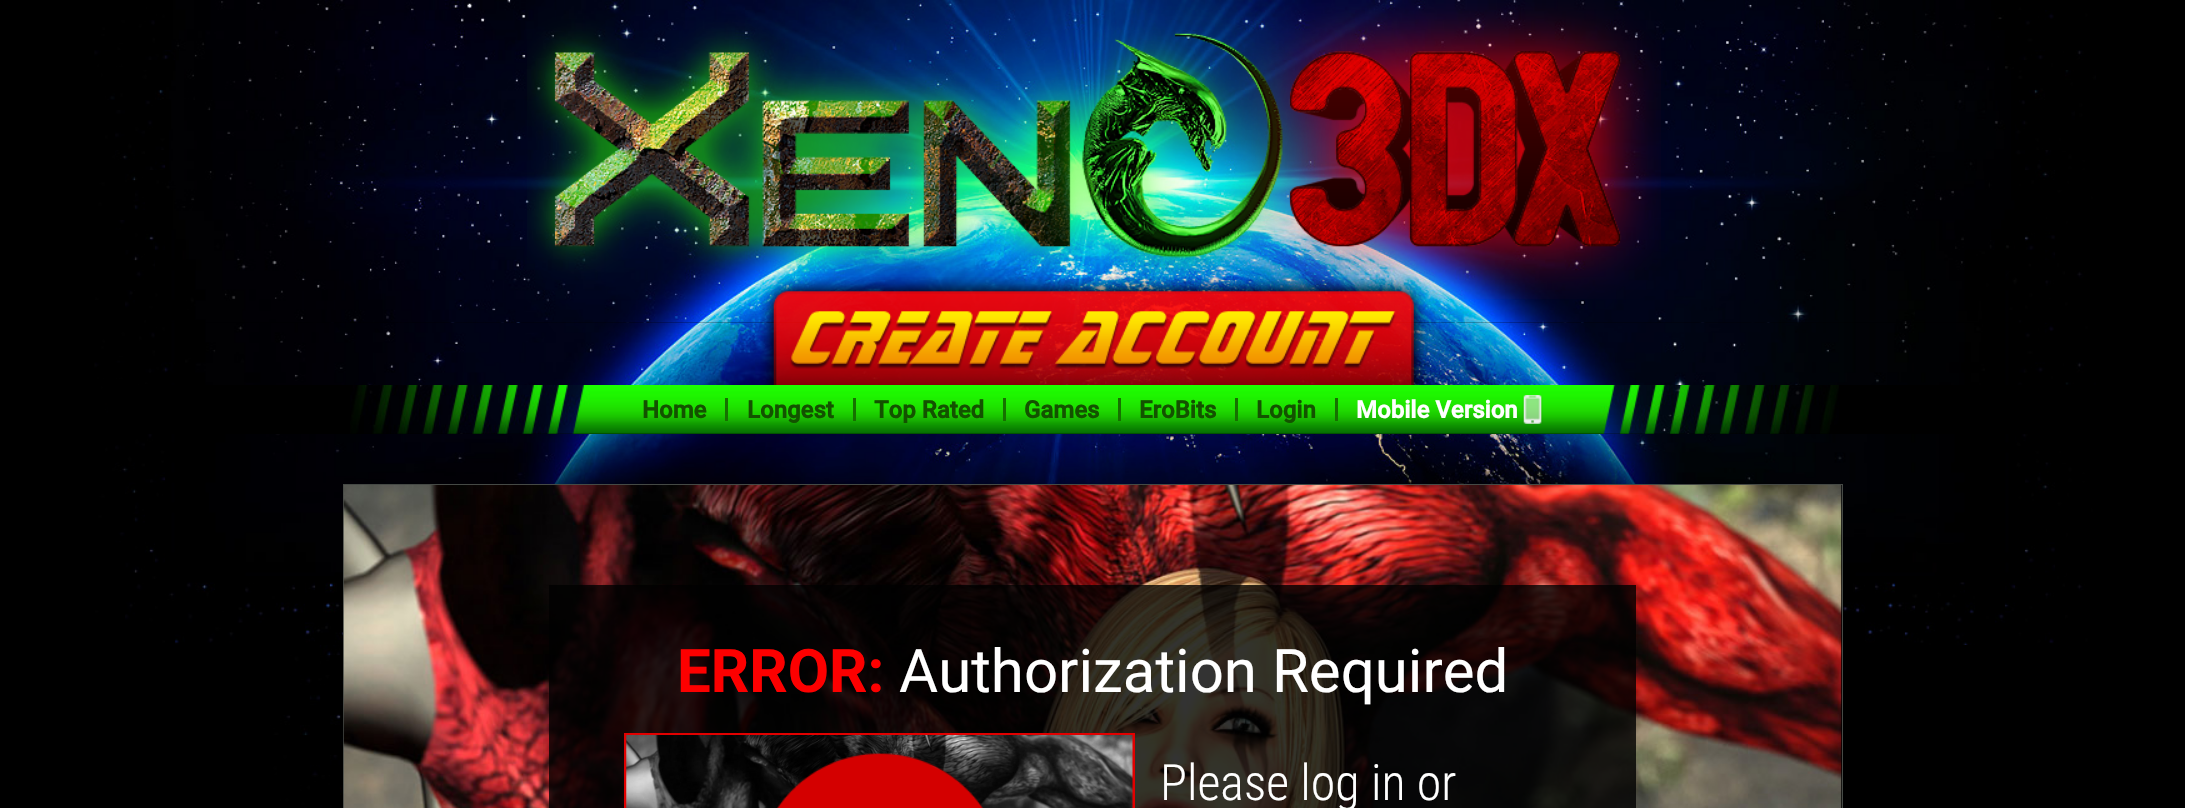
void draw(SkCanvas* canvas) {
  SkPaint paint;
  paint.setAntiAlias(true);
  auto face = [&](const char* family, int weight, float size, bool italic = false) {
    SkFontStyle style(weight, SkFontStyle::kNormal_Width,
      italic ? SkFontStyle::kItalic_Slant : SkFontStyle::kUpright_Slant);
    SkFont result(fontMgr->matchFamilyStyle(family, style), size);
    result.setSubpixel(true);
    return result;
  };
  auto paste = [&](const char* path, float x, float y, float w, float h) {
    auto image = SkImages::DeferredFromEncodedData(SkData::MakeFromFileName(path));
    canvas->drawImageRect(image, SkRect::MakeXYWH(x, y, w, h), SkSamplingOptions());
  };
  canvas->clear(0xff000000);
  paste("img/1.png", 94, 0, 2002, 808);
  paste("img/2.png", 527, 0, 1134, 299);
  paste("img/3.png", 760, 277, 668, 108);
  paint.setColor(0xff000000);
  canvas->drawRect(SkRect::MakeXYWH(108, 385, 1988, 49), paint);
  paste("img/4.png", 350, 385, 1489, 49);
  {
    const struct { float x, y, w, h; SkColor color; } items[] = {
      {725, 398, 3, 23, 0xff167100},
      {853, 398, 3, 23, 0xff167100},
      {1003, 398, 3, 23, 0xff167100},
      {1118, 398, 3, 23, 0xff167100},
      {1235, 398, 3, 23, 0xff167100},
      {1335, 398, 3, 23, 0xff167100},
    };
    for (auto [x, y, w, h, color] : items) {
      paint.setColor(color);
      canvas->drawRect(SkRect::MakeXYWH(x, y, w, h), paint);
    }
  }
  paste("img/5.png", 1522, 395, 21, 29);
  paint.setStroke(true);
  paint.setStrokeWidth(1);
  paint.setColor(0xff454945);
  canvas->drawRect(SkRect::MakeXYWH(343.5f, 484.5f, 1499, 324), paint);
  paste("img/6.png", 343, 485, 1499, 323);
  paint.setStroke(false);
  paint.setColor(0xcc000000);
  canvas->drawRect(SkRect::MakeXYWH(549, 585, 1087, 223), paint);
  paint.setStroke(true);
  paint.setStrokeWidth(3);
  paint.setColor(0xffe20000);
  canvas->drawRect(SkRect::MakeXYWH(625.5f, 734.5f, 508, 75), paint);
  paste("img/7.png", 626, 735, 507, 73);
  paste("img/8.png", 777, 753, 206, 55);
  auto f0 = face("Roboto", 700, 24);
  paint.setStroke(false);
  paint.setColor(0xff135200);
  {
    const struct { const char* s; float x, y; } items[] = {
      {"Home", 642, 418},
      {"Longest", 747, 418},
      {"Top Rated", 874, 418},
      {"Games", 1024, 418},
      {"EroBits", 1139, 418},
      {"Login", 1256, 418},
    };
    for (auto [s, x, y] : items) {
      canvas->drawString(s, x, y, f0, paint);
    }
  }
  paint.setColor(0xffffffff);
  canvas->drawString("Mobile Version", 1356, 418, f0, paint);
  auto f1 = face("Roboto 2", 700, 60);
  paint.setColor(0xfffd0000);
  canvas->drawString("ERROR:", 677, 692, f1, paint);
  auto f2 = face("Roboto", 400, 60);
  paint.setColor(0xffffffff);
  canvas->drawString("Authorization Required", 899, 692, f2, paint);
  auto f3 = face("Roboto Condensed", 300, 50);
  canvas->drawString("Please log in or", 1160, 800, f3, paint);
}
